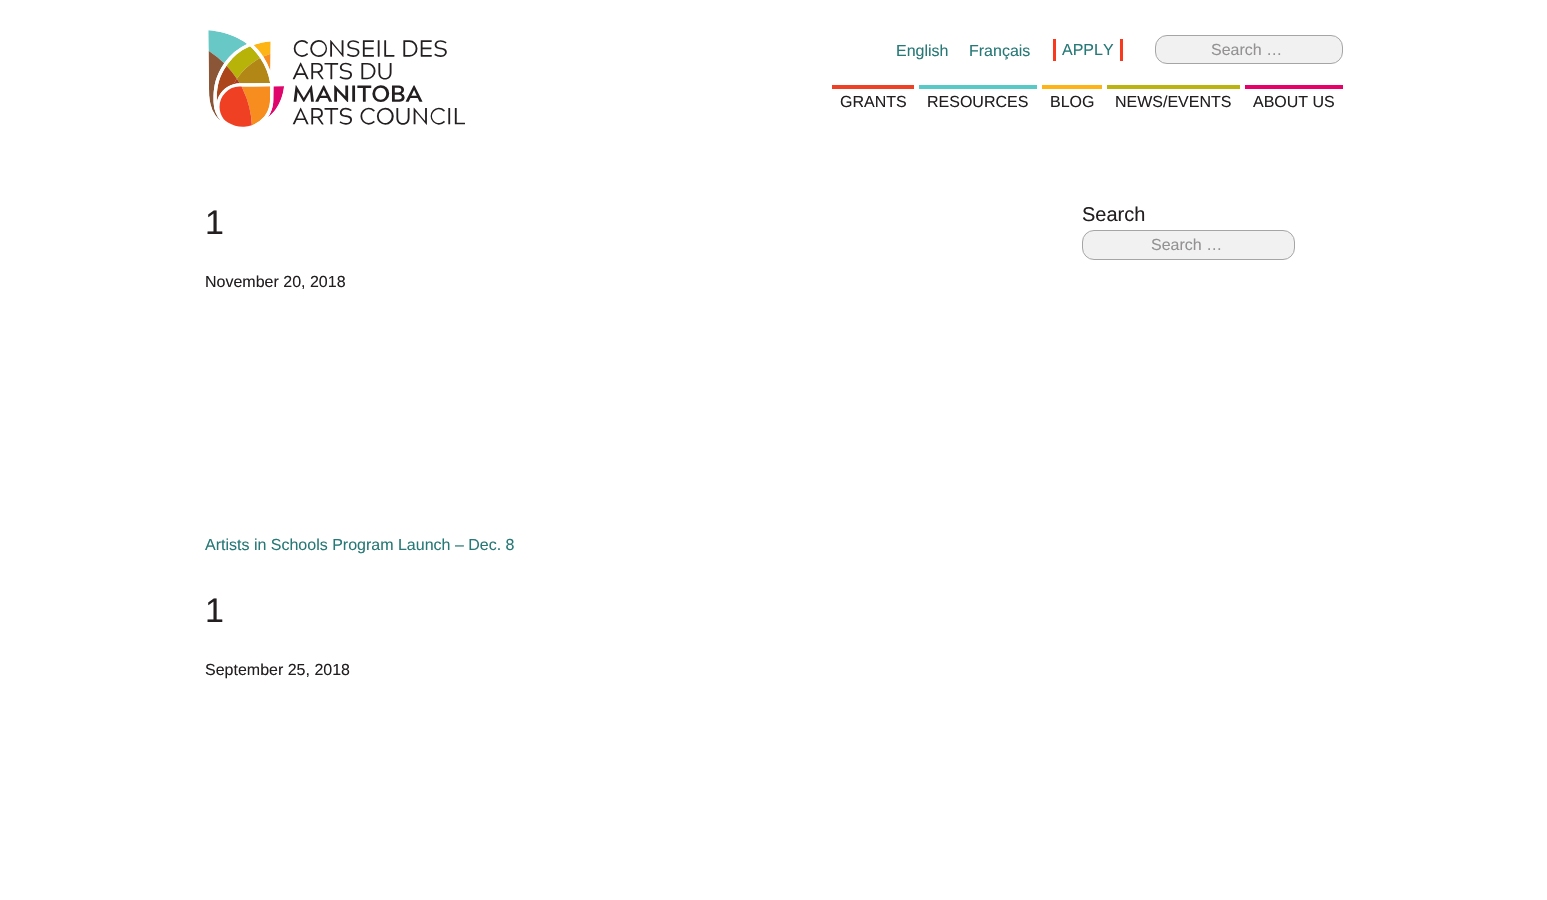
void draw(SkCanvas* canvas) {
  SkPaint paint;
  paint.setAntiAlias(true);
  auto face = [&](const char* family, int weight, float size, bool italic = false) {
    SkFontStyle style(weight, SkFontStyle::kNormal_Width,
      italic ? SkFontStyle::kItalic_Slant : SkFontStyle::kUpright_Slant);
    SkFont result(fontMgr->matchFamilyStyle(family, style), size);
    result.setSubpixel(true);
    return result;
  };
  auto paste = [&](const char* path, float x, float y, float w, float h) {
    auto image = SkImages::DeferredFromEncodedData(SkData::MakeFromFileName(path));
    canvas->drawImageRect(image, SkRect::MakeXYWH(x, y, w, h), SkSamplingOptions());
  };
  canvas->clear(0xffffffff);
  paste("img/1.png", 208, 30, 257, 97);
  paint.setColor(0xfff8391e);
  canvas->drawRect(SkRect::MakeXYWH(1120, 39, 3, 22), paint);
  canvas->drawRect(SkRect::MakeXYWH(1053, 39, 3, 22), paint);
  paint.setColor(0xfff2f1f2);
  canvas->drawRoundRect(SkRect::MakeXYWH(1155.5f, 35.5f, 187, 28), 11.5f, 11.5f, paint);
  paint.setStroke(true);
  paint.setStrokeWidth(1);
  paint.setColor(0xffa5a5a5);
  canvas->drawRoundRect(SkRect::MakeXYWH(1155.5f, 35.5f, 187, 28), 11.5f, 11.5f, paint);
  paint.setStroke(false);
  {
    const struct { float x, y, w, h; SkColor color; } items[] = {
      {832, 85, 82, 4, 0xffef4023},
      {919, 85, 118, 4, 0xff57c9c6},
      {1042, 85, 60, 4, 0xffffb415},
      {1107, 85, 133, 4, 0xffbcb30f},
      {1245, 85, 98, 4, 0xffe70069},
    };
    for (auto [x, y, w, h, color] : items) {
      paint.setColor(color);
      canvas->drawRect(SkRect::MakeXYWH(x, y, w, h), paint);
    }
  }
  paint.setColor(0xfff2f1f2);
  canvas->drawRoundRect(SkRect::MakeXYWH(1082.5f, 230.5f, 212, 29), 11.5f, 11.5f, paint);
  paint.setStroke(true);
  paint.setColor(0xffa5a5a5);
  canvas->drawRoundRect(SkRect::MakeXYWH(1082.5f, 230.5f, 212, 29), 11.5f, 11.5f, paint);
  auto f0 = face("Liberation Sans", 400, 16);
  paint.setStroke(false);
  paint.setColor(0xff277977);
  {
    const struct { const char* s; float x, y; } items[] = {
      {"English", 896, 56},
      {"Français", 969, 56},
      {"APPLY", 1062, 55},
    };
    for (auto [s, x, y] : items) {
      canvas->drawString(s, x, y, f0, paint);
    }
  }
  paint.setColor(0xff939192);
  canvas->drawString("Search …", 1211, 55, f0, paint);
  paint.setColor(0xff231f20);
  {
    const struct { const char* s; float x, y; } items[] = {
      {"GRANTS", 840, 107},
      {"RESOURCES", 927, 107},
      {"BLOG", 1050, 107},
      {"NEWS/EVENTS", 1115, 107},
      {"ABOUT US", 1253, 107},
    };
    for (auto [s, x, y] : items) {
      canvas->drawString(s, x, y, f0, paint);
    }
  }
  auto f1 = face("Liberation Sans", 400, 34);
  canvas->drawString("1", 205, 234, f1, paint);
  canvas->drawString("November 20, 2018", 205, 287, f0, paint);
  paint.setColor(0xff277977);
  canvas->drawString("Artists in Schools Program Launch – Dec. 8", 205, 550, f0, paint);
  paint.setColor(0xff231f20);
  canvas->drawString("1", 205, 622, f1, paint);
  canvas->drawString("September 25, 2018", 205, 675, f0, paint);
  auto f2 = face("Liberation Sans", 400, 20);
  canvas->drawString("Search", 1082, 221, f2, paint);
  paint.setColor(0xff939192);
  canvas->drawString("Search …", 1151, 250, f0, paint);
}
